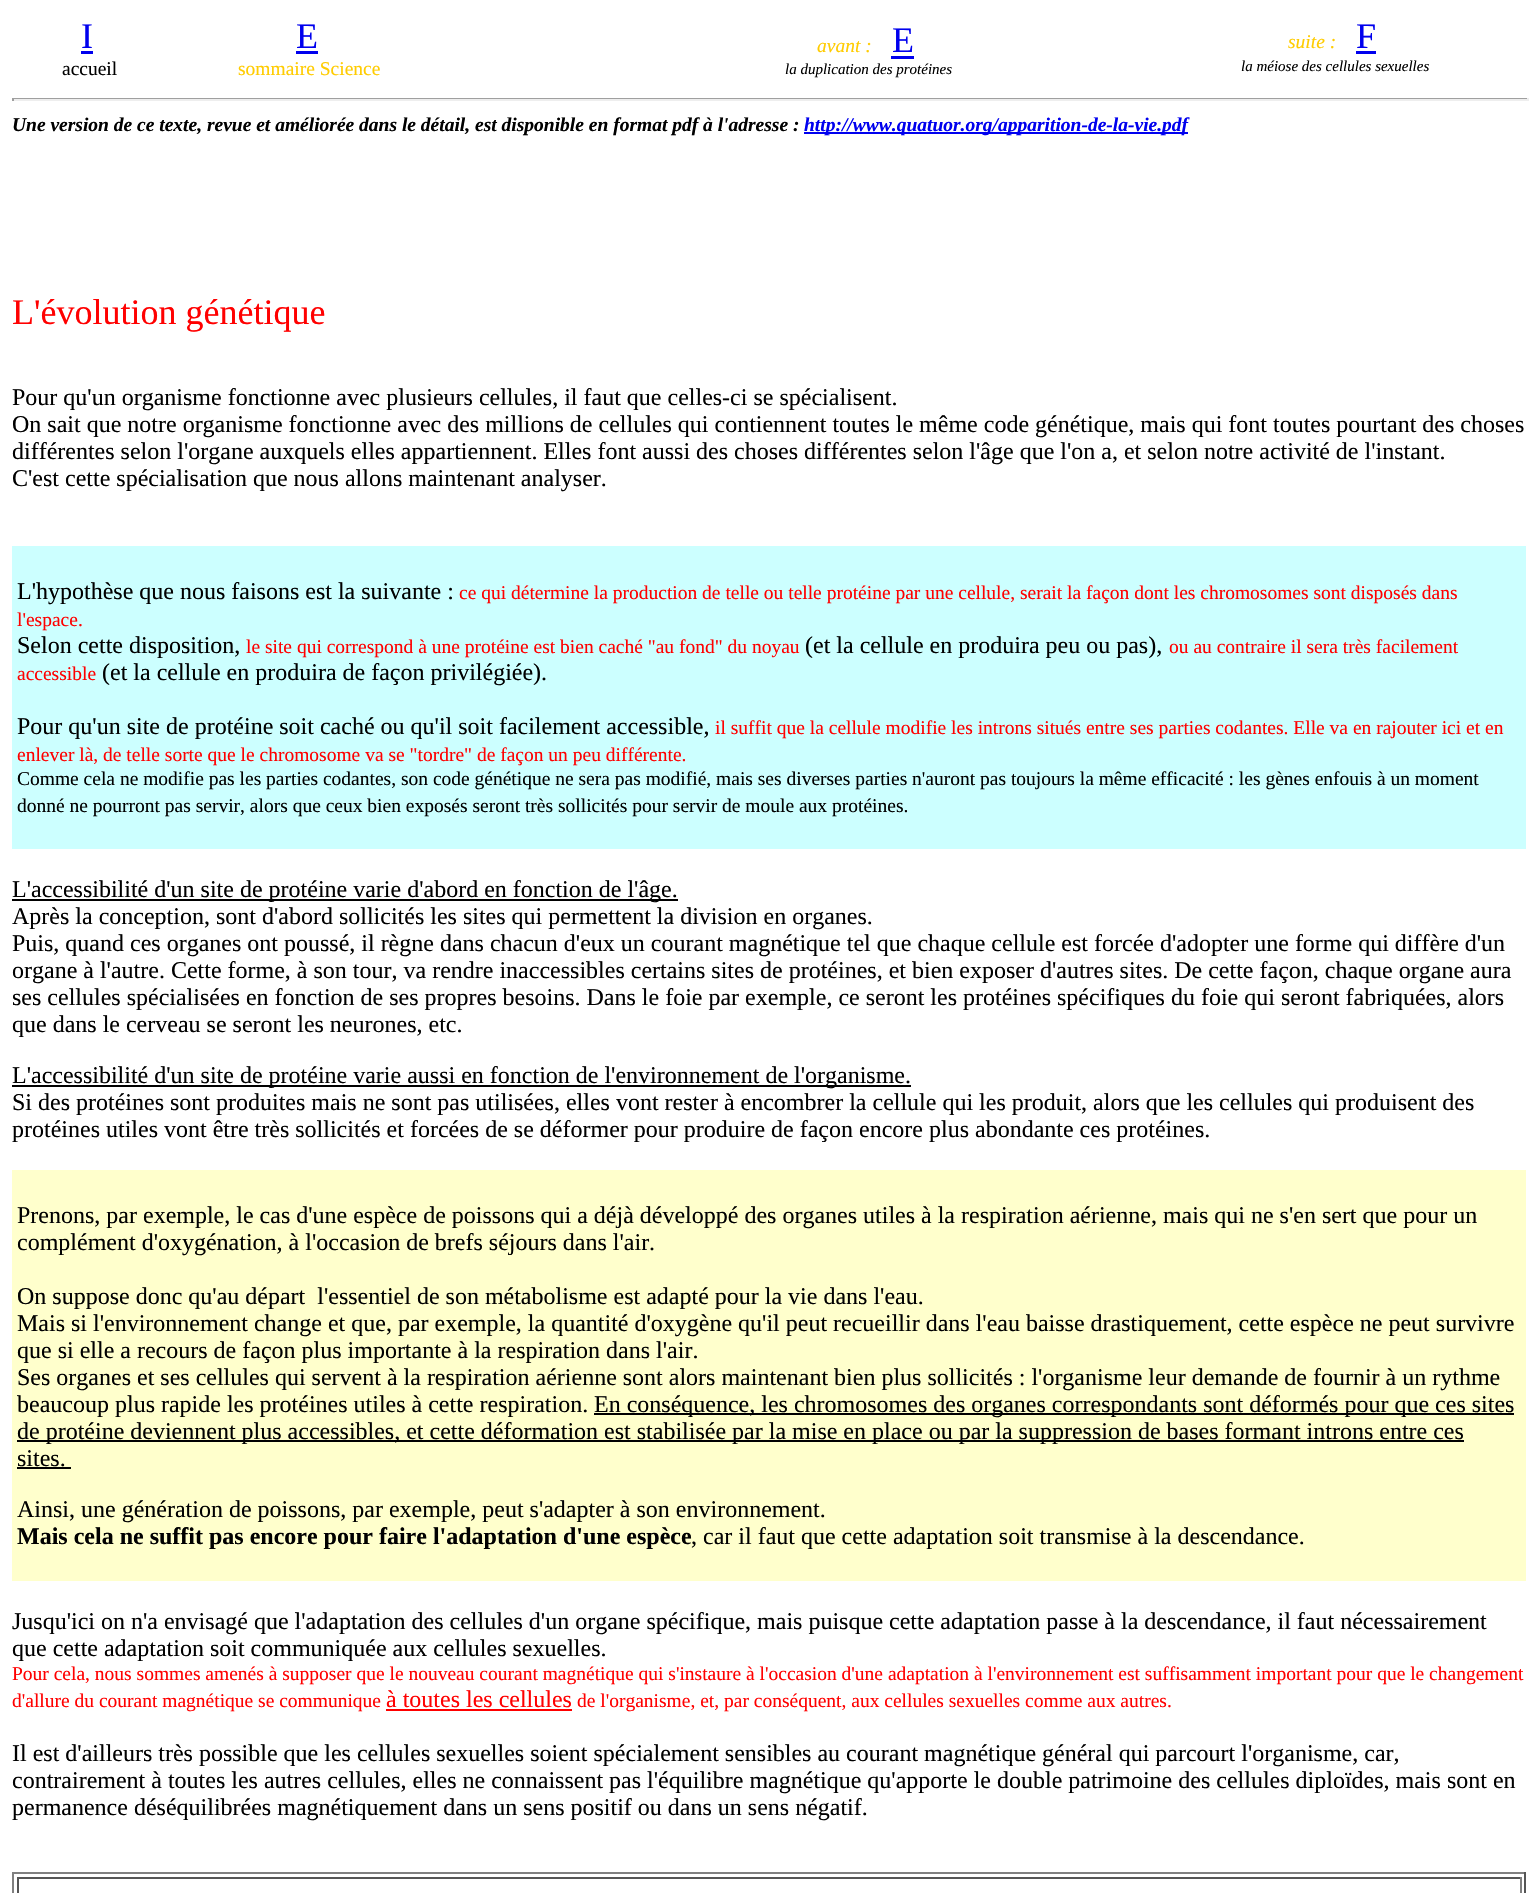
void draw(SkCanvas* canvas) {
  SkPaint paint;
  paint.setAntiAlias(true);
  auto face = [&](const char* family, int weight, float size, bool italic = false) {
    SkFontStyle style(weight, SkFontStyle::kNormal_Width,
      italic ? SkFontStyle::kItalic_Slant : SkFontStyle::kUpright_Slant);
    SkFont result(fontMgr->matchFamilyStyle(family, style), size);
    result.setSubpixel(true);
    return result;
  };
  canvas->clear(0xffffffff);
  {
    const struct { float x, y, w, h; SkColor color; } items[] = {
      {81, 51, 12, 3, 0xff0000ee},
      {296, 51, 22, 3, 0xff0000ee},
      {891, 56, 23, 3, 0xff0000ee},
      {1356, 51, 20, 3, 0xff0000ee},
      {12, 98, 1517, 1, 0xff9f9f9f},
      {1527, 98, 2, 3, 0xffeeeeee},
      {12, 99, 1517, 2, 0xffeeeeee},
      {12, 98, 2, 3, 0xff9f9f9f},
      {804, 132, 384, 2, 0xff0000ee},
      {12, 546, 1514, 303, 0xffccffff},
      {12, 899, 666, 2, 0xff000000},
      {12, 1085, 899, 2, 0xff000000},
      {12, 1170, 1514, 411, 0xffffffcc},
      {594, 1413, 920, 2, 0xff000000},
      {17, 1440, 1447, 2, 0xff000000},
      {17, 1467, 54, 2, 0xff000000},
      {386, 1709, 186, 2, 0xffff0000},
      {12, 1872, 1514, 2, 0xff808080},
      {1524, 1872, 2, 21, 0xff555555},
      {12, 1872, 2, 21, 0xff808080},
      {17, 1877, 1504, 2, 0xff555555},
      {1520, 1877, 2, 16, 0xff808080},
      {17, 1877, 2, 16, 0xff555555},
    };
    for (auto [x, y, w, h, color] : items) {
      paint.setColor(color);
      canvas->drawRect(SkRect::MakeXYWH(x, y, w, h), paint);
    }
  }
  auto f0 = face("Liberation Serif", 400, 36);
  paint.setColor(0xff0000ee);
  canvas->drawString("I", 81, 48, f0, paint);
  auto f1 = face("Liberation Serif", 400, 19.5f);
  paint.setColor(0xff000000);
  canvas->drawString("accueil", 62, 75, f1, paint);
  paint.setColor(0xff0000ee);
  canvas->drawString("E", 296, 48, f0, paint);
  paint.setColor(0xffffcc00);
  canvas->drawString("sommaire Science", 238, 75, f1, paint);
  auto f2 = face("Liberation Serif", 400, 19.5f, true);
  canvas->drawString("avant :", 817, 52, f2, paint);
  paint.setColor(0xff0000ee);
  canvas->drawString("E", 892, 52, f0, paint);
  auto f3 = face("Liberation Serif", 400, 15, true);
  paint.setColor(0xff000000);
  canvas->drawString("la duplication des protéines", 785, 74, f3, paint);
  paint.setColor(0xffffcc00);
  canvas->drawString("suite :", 1288, 48, f2, paint);
  paint.setColor(0xff0000ee);
  canvas->drawString("F", 1356, 48, f0, paint);
  paint.setColor(0xff000000);
  canvas->drawString("la méiose des cellules sexuelles", 1241, 71, f3, paint);
  auto f4 = face("Liberation Serif", 700, 19.5f, true);
  canvas->drawString("Une version de ce texte, revue et améliorée dans le détail, est disponible en format pdf à l'adresse :", 12, 131, f4, paint);
  paint.setColor(0xff0000ee);
  canvas->drawString("http://www.quatuor.org/apparition-de-la-vie.pdf", 804, 131, f4, paint);
  paint.setColor(0xffff0000);
  canvas->drawString("L'évolution génétique", 12, 324, f0, paint);
  auto f5 = face("Liberation Serif", 400, 24);
  paint.setColor(0xff000000);
  {
    const struct { const char* s; float x, y; } items[] = {
      {"Pour qu'un organisme fonctionne avec plusieurs cellules, il faut que celles-ci se spécialisent.", 12, 405},
      {"On sait que notre organisme fonctionne avec des millions de cellules qui contiennent toutes le même code génétique, mais qui font toutes pourtant des choses", 12, 432},
      {"différentes selon l'organe auxquels elles appartiennent. Elles font aussi des choses différentes selon l'âge que l'on a, et selon notre activité de l'instant.", 12, 459},
      {"C'est cette spécialisation que nous allons maintenant analyser.", 12, 486},
      {"L'hypothèse que nous faisons est la suivante :", 17, 599},
    };
    for (auto [s, x, y] : items) {
      canvas->drawString(s, x, y, f5, paint);
    }
  }
  paint.setColor(0xffff0000);
  canvas->drawString("ce qui détermine la production de telle ou telle protéine par une cellule, serait la façon dont les chromosomes sont disposés dans", 459, 599, f1, paint);
  canvas->drawString("l'espace.", 17, 626, f1, paint);
  paint.setColor(0xff000000);
  canvas->drawString("Selon cette disposition,", 17, 653, f5, paint);
  paint.setColor(0xffff0000);
  canvas->drawString("le site qui correspond à une protéine est bien caché \"au fond\" du noyau", 246, 653, f1, paint);
  paint.setColor(0xff000000);
  canvas->drawString("(et la cellule en produira peu ou pas),", 805, 653, f5, paint);
  paint.setColor(0xffff0000);
  canvas->drawString("ou au contraire il sera très facilement", 1169, 653, f1, paint);
  canvas->drawString("accessible", 17, 680, f1, paint);
  paint.setColor(0xff000000);
  canvas->drawString("(et la cellule en produira de façon privilégiée).", 102, 680, f5, paint);
  canvas->drawString("Pour qu'un site de protéine soit caché ou qu'il soit facilement accessible,", 17, 734, f5, paint);
  paint.setColor(0xffff0000);
  canvas->drawString("il suffit que la cellule modifie les introns situés entre ses parties codantes. Elle va en rajouter ici et en", 715, 734, f1, paint);
  canvas->drawString("enlever là, de telle sorte que le chromosome va se \"tordre\" de façon un peu différente.", 17, 761, f1, paint);
  paint.setColor(0xff000000);
  canvas->drawString("Comme cela ne modifie pas les parties codantes, son code génétique ne sera pas modifié, mais ses diverses parties n'auront pas toujours la même efficacité : les gènes enfouis à un moment", 17, 785, f1, paint);
  canvas->drawString("donné ne pourront pas servir, alors que ceux bien exposés seront très sollicités pour servir de moule aux protéines.", 17, 812, f1, paint);
  {
    const struct { const char* s; float x, y; } items[] = {
      {"L'accessibilité d'un site de protéine varie d'abord en fonction de l'âge.", 12, 897},
      {"Après la conception, sont d'abord sollicités les sites qui permettent la division en organes.", 12, 924},
      {"Puis, quand ces organes ont poussé, il règne dans chacun d'eux un courant magnétique tel que chaque cellule est forcée d'adopter une forme qui diffère d'un", 12, 951},
      {"organe à l'autre. Cette forme, à son tour, va rendre inaccessibles certains sites de protéines, et bien exposer d'autres sites. De cette façon, chaque organe aura", 12, 978},
      {"ses cellules spécialisées en fonction de ses propres besoins. Dans le foie par exemple, ce seront les protéines spécifiques du foie qui seront fabriquées, alors", 12, 1005},
      {"que dans le cerveau se seront les neurones, etc.", 12, 1032},
      {"L'accessibilité d'un site de protéine varie aussi en fonction de l'environnement de l'organisme.", 12, 1083},
      {"Si des protéines sont produites mais ne sont pas utilisées, elles vont rester à encombrer la cellule qui les produit, alors que les cellules qui produisent des", 12, 1110},
      {"protéines utiles vont être très sollicités et forcées de se déformer pour produire de façon encore plus abondante ces protéines.", 12, 1137},
      {"Prenons, par exemple, le cas d'une espèce de poissons qui a déjà développé des organes utiles à la respiration aérienne, mais qui ne s'en sert que pour un", 17, 1223},
      {"complément d'oxygénation, à l'occasion de brefs séjours dans l'air.", 17, 1250},
      {"On suppose donc qu'au départ  l'essentiel de son métabolisme est adapté pour la vie dans l'eau.", 17, 1304},
      {"Mais si l'environnement change et que, par exemple, la quantité d'oxygène qu'il peut recueillir dans l'eau baisse drastiquement, cette espèce ne peut survivre", 17, 1331},
      {"que si elle a recours de façon plus importante à la respiration dans l'air.", 17, 1358},
      {"Ses organes et ses cellules qui servent à la respiration aérienne sont alors maintenant bien plus sollicités : l'organisme leur demande de fournir à un rythme", 17, 1385},
      {"beaucoup plus rapide les protéines utiles à cette respiration.", 17, 1412},
      {"En conséquence, les chromosomes des organes correspondants sont déformés pour que ces sites", 594, 1412},
      {"de protéine deviennent plus accessibles, et cette déformation est stabilisée par la mise en place ou par la suppression de bases formant introns entre ces", 17, 1439},
      {"sites.", 17, 1466},
      {"Ainsi, une génération de poissons, par exemple, peut s'adapter à son environnement.", 17, 1517},
    };
    for (auto [s, x, y] : items) {
      canvas->drawString(s, x, y, f5, paint);
    }
  }
  auto f6 = face("Liberation Serif", 700, 24);
  canvas->drawString("Mais cela ne suffit pas encore pour faire l'adaptation d'une espèce", 17, 1544, f6, paint);
  {
    const struct { const char* s; float x, y; } items[] = {
      {", car il faut que cette adaptation soit transmise à la descendance.", 691, 1544},
      {"Jusqu'ici on n'a envisagé que l'adaptation des cellules d'un organe spécifique, mais puisque cette adaptation passe à la descendance, il faut nécessairement", 12, 1629},
      {"que cette adaptation soit communiquée aux cellules sexuelles.", 12, 1656},
    };
    for (auto [s, x, y] : items) {
      canvas->drawString(s, x, y, f5, paint);
    }
  }
  paint.setColor(0xffff0000);
  canvas->drawString("Pour cela, nous sommes amenés à supposer que le nouveau courant magnétique qui s'instaure à l'occasion d'une adaptation à l'environnement est suffisamment important pour que le changement", 12, 1680, f1, paint);
  canvas->drawString("d'allure du courant magnétique se communique", 12, 1707, f1, paint);
  canvas->drawString("à toutes les cellules", 386, 1707, f5, paint);
  canvas->drawString("de l'organisme, et, par conséquent, aux cellules sexuelles comme aux autres.", 577, 1707, f1, paint);
  paint.setColor(0xff000000);
  {
    const struct { const char* s; float x, y; } items[] = {
      {"Il est d'ailleurs très possible que les cellules sexuelles soient spécialement sensibles au courant magnétique général qui parcourt l'organisme, car,", 12, 1761},
      {"contrairement à toutes les autres cellules, elles ne connaissent pas l'équilibre magnétique qu'apporte le double patrimoine des cellules diploïdes, mais sont en", 12, 1788},
      {"permanence déséquilibrées magnétiquement dans un sens positif ou dans un sens négatif.", 12, 1815},
    };
    for (auto [s, x, y] : items) {
      canvas->drawString(s, x, y, f5, paint);
    }
  }
}
